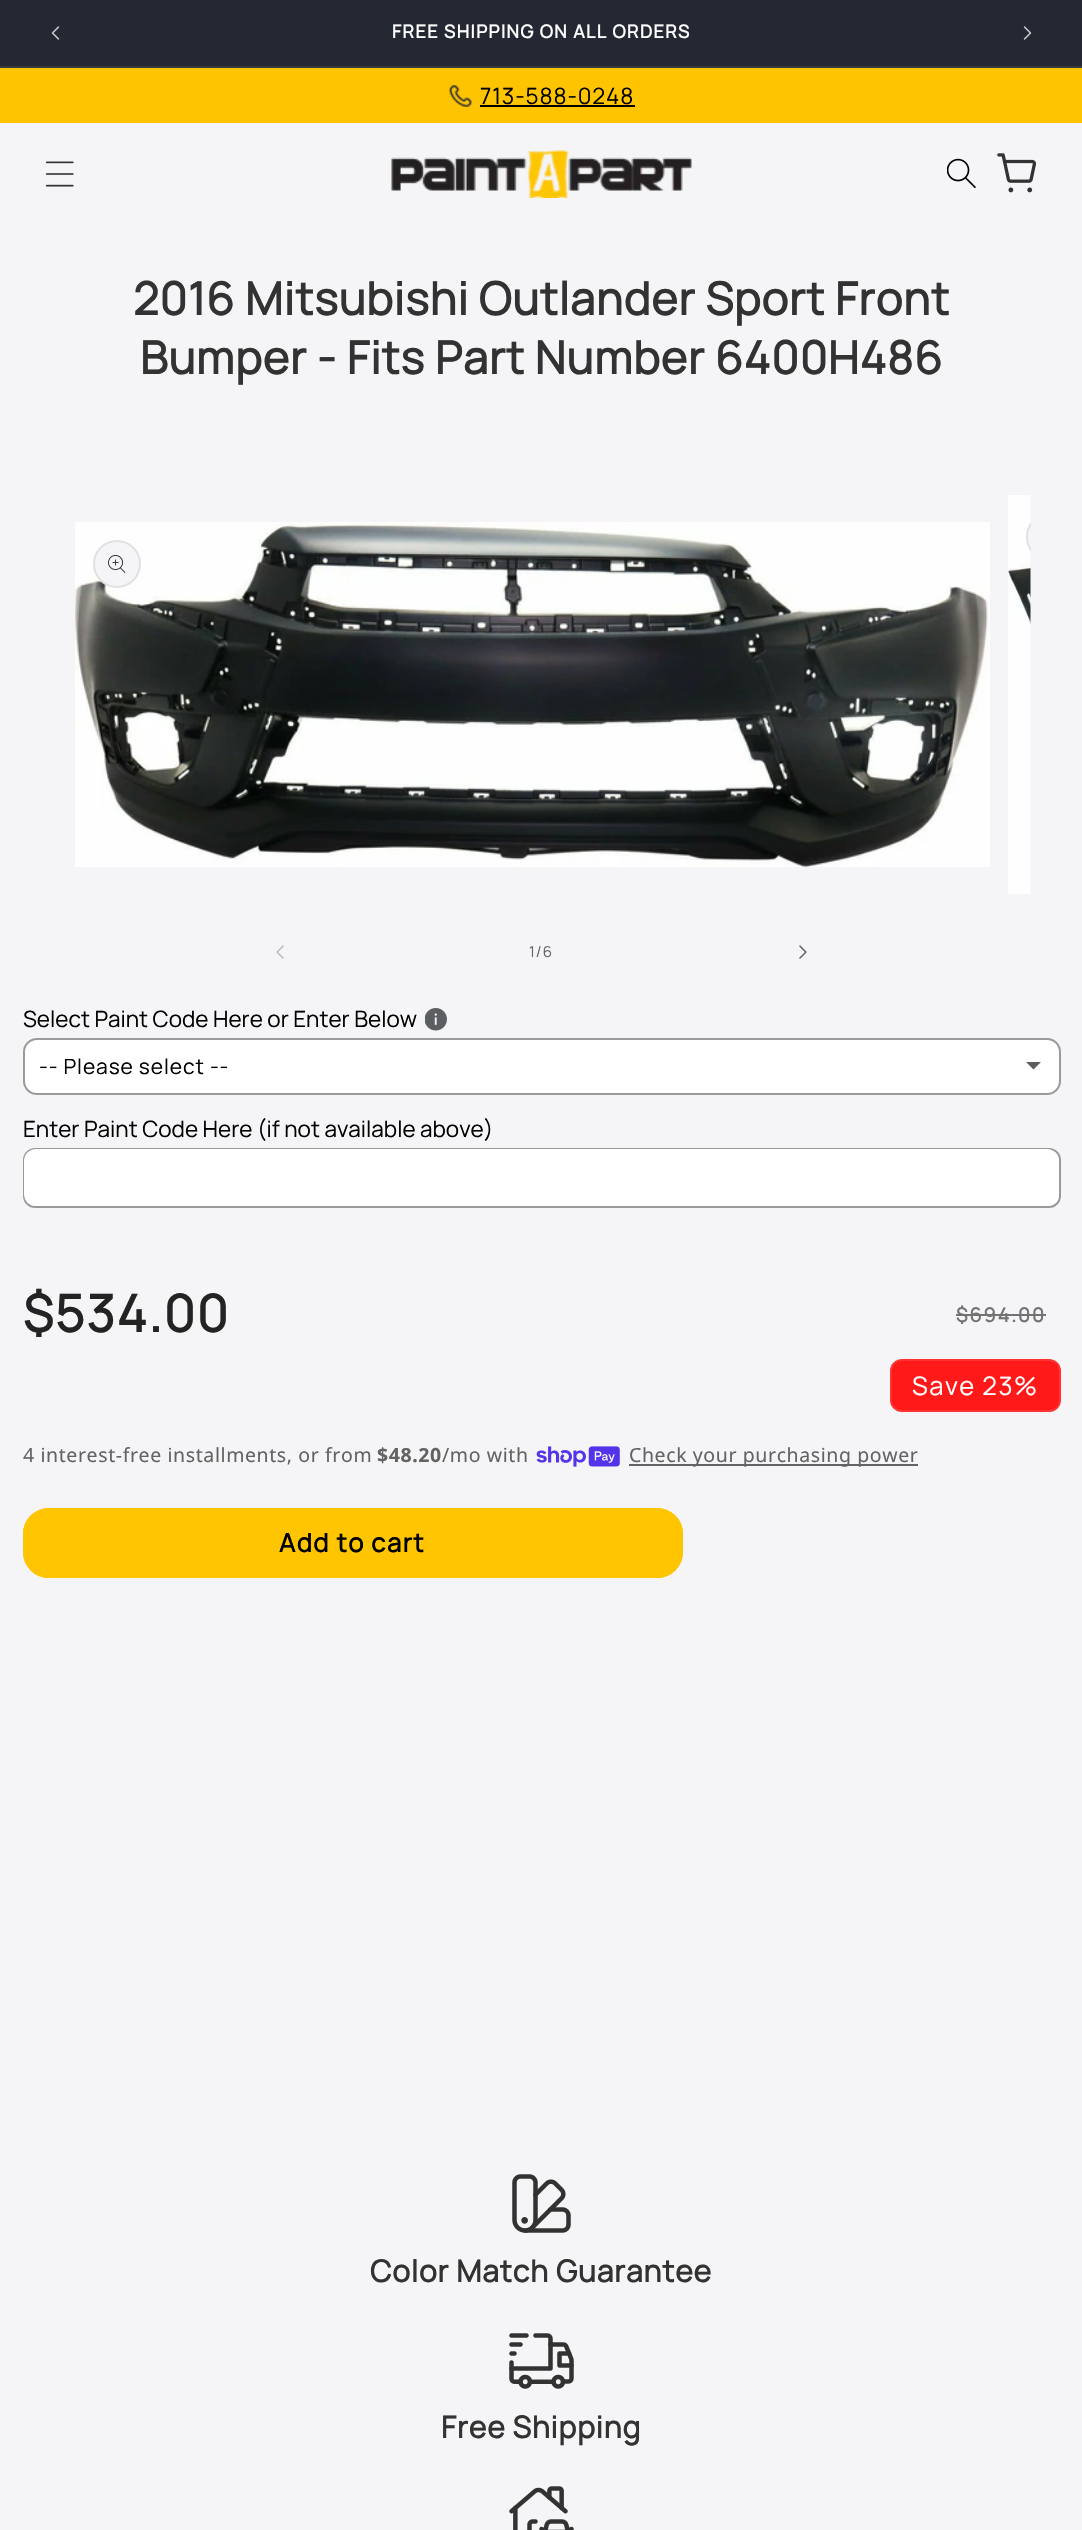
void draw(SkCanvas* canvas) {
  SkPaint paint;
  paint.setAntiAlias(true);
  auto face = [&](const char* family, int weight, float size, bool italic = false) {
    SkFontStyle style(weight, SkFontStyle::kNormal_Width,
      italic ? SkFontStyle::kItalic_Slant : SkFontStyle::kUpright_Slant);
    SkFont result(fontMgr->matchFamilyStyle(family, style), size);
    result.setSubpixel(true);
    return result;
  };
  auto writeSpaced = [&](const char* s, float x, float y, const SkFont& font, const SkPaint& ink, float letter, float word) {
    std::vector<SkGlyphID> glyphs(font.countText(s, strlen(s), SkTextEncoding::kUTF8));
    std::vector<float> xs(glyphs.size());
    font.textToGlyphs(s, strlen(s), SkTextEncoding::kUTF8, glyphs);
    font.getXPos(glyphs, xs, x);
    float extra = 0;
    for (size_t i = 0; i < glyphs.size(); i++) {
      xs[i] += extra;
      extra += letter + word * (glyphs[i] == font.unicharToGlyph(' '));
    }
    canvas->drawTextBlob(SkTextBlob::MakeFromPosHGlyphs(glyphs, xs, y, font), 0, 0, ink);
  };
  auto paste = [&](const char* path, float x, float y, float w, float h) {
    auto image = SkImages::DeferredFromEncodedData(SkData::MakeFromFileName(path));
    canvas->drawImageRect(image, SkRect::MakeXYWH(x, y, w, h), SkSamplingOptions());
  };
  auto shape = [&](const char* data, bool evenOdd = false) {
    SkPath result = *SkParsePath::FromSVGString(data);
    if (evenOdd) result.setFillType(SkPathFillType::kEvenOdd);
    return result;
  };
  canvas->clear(0xfff5f5f7);
  paint.setColor(0xff242833);
  canvas->drawRect(SkRect::MakeXYWH(0, 0, 1082, 66), paint);
  paint.setColor(0xff363943);
  canvas->drawRect(SkRect::MakeXYWH(0, 66, 1082, 2), paint);
  paste("img/1.png", 51, 26, 9, 14);
  paste("img/2.png", 1023, 26, 9, 14);
  paint.setColor(0xfffec400);
  canvas->drawRect(SkRect::MakeXYWH(0, 68, 1082, 55), paint);
  paste("img/3.png", 449, 85, 23, 22);
  paint.setColor(0xff000000);
  canvas->drawRect(SkRect::MakeXYWH(480, 105, 155, 2), paint);
  paste("img/4.png", 45, 161, 29, 26);
  paste("img/5.png", 391, 150, 301, 48);
  paste("img/6.png", 947, 158, 29, 30);
  paste("img/7.png", 997, 153, 39, 40);
  paste("img/8.png", 75, 522, 915, 345);
  paint.setColor(0xfff5f5f7);
  canvas->drawCircle(117, 564, 24, paint);
  paint.setStroke(true);
  paint.setStrokeWidth(2);
  paint.setColor(0x1a323232);
  canvas->drawCircle(117, 564, 23, paint);
  paste("img/9.png", 108, 555, 18, 18);
  paste("img/10.png", 1008, 495, 23, 399);
  paint.setStroke(false);
  paint.setColor(0xfff5f5f7);
  canvas->drawPath(shape("M1050 513H1031V561H1050C1036.5 561 1026 550.5 1026 537C1026 523.5 1036.5 513 1050 513Z"), paint);
  canvas->save();
  canvas->clipRect(SkRect::MakeXYWH(53, 485, 978, 420));
  paint.setStroke(true);
  paint.setColor(0x1a323232);
  canvas->drawCircle(1050, 537, 23, paint);
  canvas->restore();
  paste("img/11.png", 276, 945, 8, 14);
  paste("img/12.png", 799, 945, 8, 14);
  paste("img/13.png", 425, 1008, 22, 23);
  paint.setStroke(false);
  paint.setColor(0xffffffff);
  canvas->drawRoundRect(SkRect::MakeXYWH(24, 1039, 1036, 55), 13, 13, paint);
  paint.setStroke(true);
  paint.setColor(0xff9a9a9a);
  canvas->drawRoundRect(SkRect::MakeXYWH(24, 1039, 1036, 55), 13, 13, paint);
  paint.setStroke(false);
  paint.setColor(0xff5c5f62);
  canvas->drawPath(shape("M1026 1062H1041L1033.5 1069.5Z"), paint);
  paint.setColor(0xffffffff);
  canvas->drawRoundRect(SkRect::MakeXYWH(24, 1149, 1036, 58), 11, 11, paint);
  paint.setStroke(true);
  paint.setColor(0xff9a9a9a);
  canvas->drawRoundRect(SkRect::MakeXYWH(24, 1149, 1036, 58), 11, 11, paint);
  paint.setStroke(false);
  paint.setColor(0xffffffff);
  canvas->drawRoundRect(SkRect::MakeXYWH(24, 1149, 1035, 57), 12, 12, paint);
  paint.setColor(0xff737373);
  canvas->drawRect(SkRect::MakeXYWH(956, 1314, 90, 2), paint);
  paint.setColor(0xffff1919);
  canvas->drawRoundRect(SkRect::MakeXYWH(890, 1359, 171, 53), 12, 12, paint);
  paint.setStroke(true);
  paint.setColor(0x1affffff);
  canvas->drawRoundRect(SkRect::MakeXYWH(891, 1360, 169, 51), 11, 11, paint);
  paste("img/14.png", 536, 1446, 84, 21);
  paint.setStroke(false);
  paint.setColor(0xff636363);
  canvas->drawRect(SkRect::MakeXYWH(629, 1464, 289, 2), paint);
  paint.setColor(0xffffc500);
  canvas->drawRoundRect(SkRect::MakeXYWH(23, 1508, 660, 70), 26, 26, paint);
  paint.setStroke(true);
  canvas->drawRoundRect(SkRect::MakeXYWH(24, 1509, 658, 68), 25, 25, paint);
  paste("img/15.png", 512, 2174, 59, 59);
  paste("img/16.png", 509, 2333, 65, 56);
  paste("img/17.png", 509, 2486, 65, 44);
  auto f0 = face("Manrope", 700, 18);
  paint.setStroke(false);
  paint.setColor(0xffffffff);
  writeSpaced("FREE SHIPPING ON ALL ORDERS", 392, 38, f0, paint, 1.5f, 0);
  auto f1 = face("Manrope", 400, 22.5f);
  paint.setColor(0xff000000);
  writeSpaced("713-588-0248", 480, 104, f1, paint, 0.9f, 0);
  auto f2 = face("Manrope", 700, 45);
  paint.setColor(0xff323232);
  writeSpaced("2016 Mitsubishi Outlander Sport Front", 133, 315, f2, paint, 0.9f, 0);
  writeSpaced("Bumper - Fits Part Number 6400H486", 140, 374, f2, paint, 0.9f, 0);
  auto f3 = face("Manrope", 400, 15);
  paint.setColor(0xff636363);
  writeSpaced("1/6", 529, 957, f3, paint, 1, 0);
  paint.setColor(0xff000000);
  canvas->drawString("Select Paint Code Here or Enter Below", 23, 1027, f1, paint);
  auto f4 = face("Manrope", 400, 21);
  writeSpaced("-- Please select --", 39, 1074, f4, paint, 0.9f, 0);
  canvas->drawString("Enter Paint Code Here (if not available above)", 23, 1137, f1, paint);
  auto f5 = face("Manrope", 700, 51);
  paint.setColor(0xff232323);
  writeSpaced("$534.00", 23, 1332, f5, paint, 2, 0);
  auto f6 = face("Manrope", 700, 19.5f);
  paint.setColor(0xff737373);
  writeSpaced("$694.00", 956, 1322, f6, paint, 2, 0);
  auto f7 = face("Manrope", 400, 25.5f);
  paint.setColor(0xffffffff);
  writeSpaced("Save 23%", 912, 1395, f7, paint, 1.5f, 0);
  auto f8 = face("Noto Sans", 400, 19.5f);
  paint.setColor(0xff636363);
  writeSpaced("4 interest-free installments, or from", 23, 1462, f8, paint, 0.6f, 0);
  auto f9 = face("Noto Sans", 700, 19.5f);
  writeSpaced("$48.20", 377, 1462, f9, paint, 0.6f, 0);
  writeSpaced("/mo with", 442, 1462, f8, paint, 0.6f, 0);
  writeSpaced("Check your purchasing power", 629, 1462, f8, paint, 0.6f, 0);
  auto f10 = face("Manrope", 700, 25.5f);
  paint.setColor(0xff000000);
  writeSpaced("Add to cart", 279, 1552, f10, paint, 1.5f, 0);
  auto f11 = face("Manrope", 700, 30);
  paint.setColor(0xff323232);
  writeSpaced("Color Match Guarantee", 370, 2282, f11, paint, 0.9f, 0);
  writeSpaced("Free Shipping", 441, 2438, f11, paint, 0.9f, 0);
}
